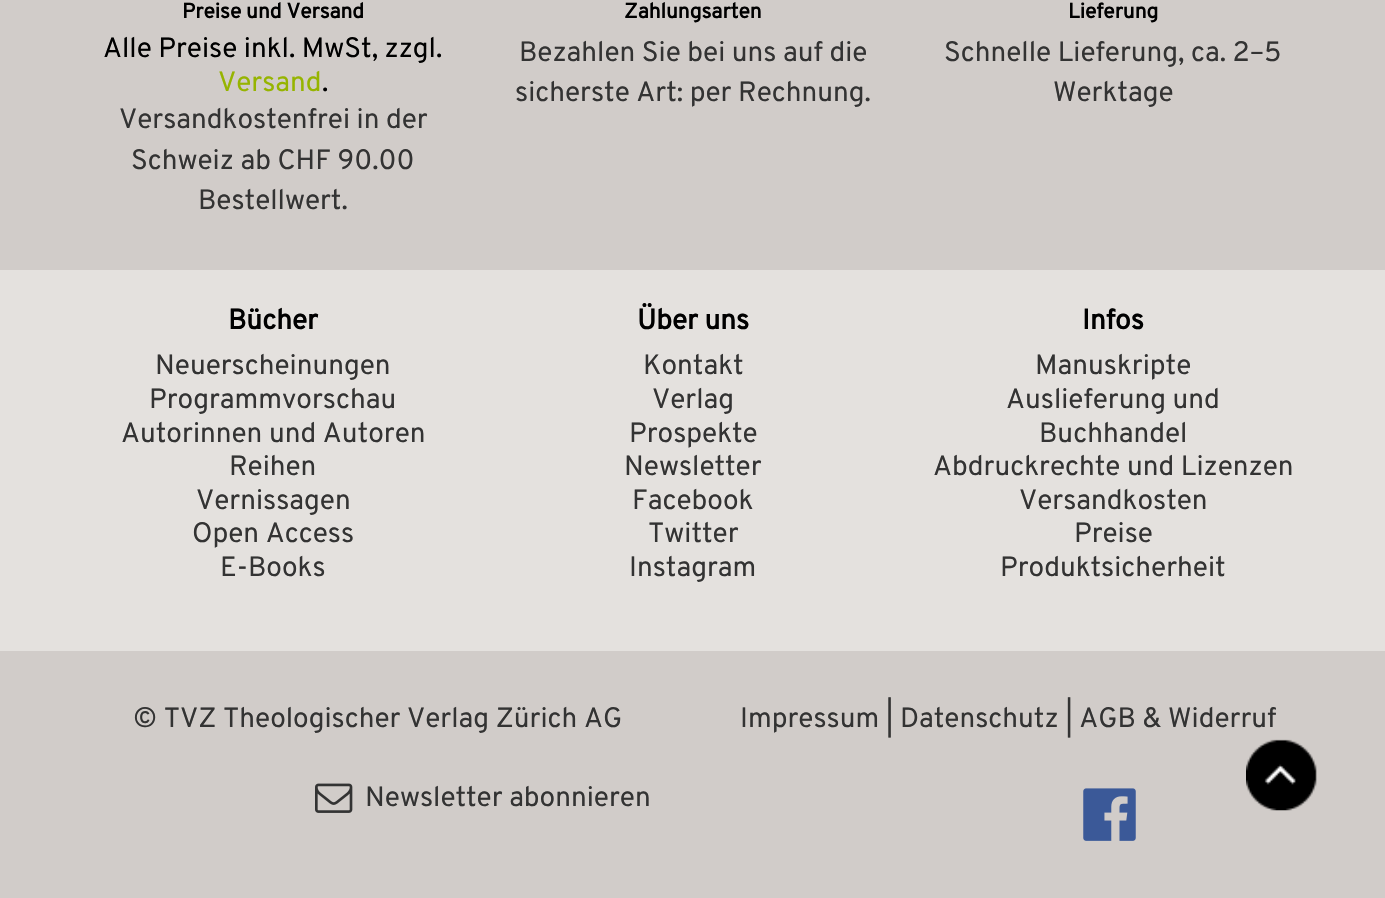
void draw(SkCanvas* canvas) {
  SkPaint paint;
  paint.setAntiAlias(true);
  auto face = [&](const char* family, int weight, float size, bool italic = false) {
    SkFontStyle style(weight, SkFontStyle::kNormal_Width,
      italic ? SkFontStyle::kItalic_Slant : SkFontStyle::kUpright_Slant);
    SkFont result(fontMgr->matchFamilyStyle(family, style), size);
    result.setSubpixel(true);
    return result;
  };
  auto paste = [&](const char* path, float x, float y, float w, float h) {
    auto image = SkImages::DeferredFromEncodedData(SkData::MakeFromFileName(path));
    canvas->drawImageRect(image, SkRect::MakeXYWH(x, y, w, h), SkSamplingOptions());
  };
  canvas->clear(0xffd1ccc9);
  paste("img/1.png", 1246, 739, 71, 72);
  paint.setColor(0xffe4e1de);
  canvas->drawRect(SkRect::MakeXYWH(0, 270, 1385, 381), paint);
  paste("img/2.png", 315, 783, 38, 30);
  paste("img/3.png", 1083, 788, 53, 53);
  auto f0 = face("Overpass", 700, 21);
  paint.setColor(0xff000000);
  canvas->drawString("Preise und Versand", 182, 18, f0, paint);
  auto f1 = face("Overpass", 400, 28);
  canvas->drawString("Alle Preise inkl. MwSt, zzgl.", 103, 57, f1, paint);
  paint.setColor(0xff96b400);
  canvas->drawString("Versand", 218, 91, f1, paint);
  paint.setColor(0xff000000);
  canvas->drawString(".", 322, 91, f1, paint);
  paint.setColor(0xff333333);
  {
    const struct { const char* s; float x, y; } items[] = {
      {"Versandkostenfrei in der", 119, 128},
      {"Schweiz ab CHF 90.00", 131, 169},
      {"Bestellwert.", 198, 209},
    };
    for (auto [s, x, y] : items) {
      canvas->drawString(s, x, y, f1, paint);
    }
  }
  paint.setColor(0xff000000);
  canvas->drawString("Zahlungsarten", 624, 18, f0, paint);
  paint.setColor(0xff333333);
  canvas->drawString("Bezahlen Sie bei uns auf die", 519, 61, f1, paint);
  canvas->drawString("sicherste Art: per Rechnung.", 515, 101, f1, paint);
  paint.setColor(0xff000000);
  canvas->drawString("Lieferung", 1068, 18, f0, paint);
  paint.setColor(0xff333333);
  canvas->drawString("Schnelle Lieferung, ca. 2–5", 944, 61, f1, paint);
  canvas->drawString("Werktage", 1053, 101, f1, paint);
  auto f2 = face("Overpass", 700, 28);
  paint.setColor(0xff000000);
  canvas->drawString("Bücher", 228, 329, f2, paint);
  paint.setColor(0xff333333);
  {
    const struct { const char* s; float x, y; } items[] = {
      {"Neuerscheinungen", 155, 374},
      {"Programmvorschau", 149, 408},
      {"Autorinnen und Autoren", 121, 442},
      {"Reihen", 229, 475},
      {"Vernissagen", 196, 509},
      {"Open Access", 192, 542},
      {"E-Books", 220, 576},
    };
    for (auto [s, x, y] : items) {
      canvas->drawString(s, x, y, f1, paint);
    }
  }
  paint.setColor(0xff000000);
  canvas->drawString("Über uns", 637, 329, f2, paint);
  paint.setColor(0xff333333);
  {
    const struct { const char* s; float x, y; } items[] = {
      {"Kontakt", 643, 374},
      {"Verlag", 652, 408},
      {"Prospekte", 629, 442},
      {"Newsletter", 624, 475},
      {"Facebook", 632, 509},
      {"Twitter", 648, 542},
      {"Instagram", 629, 576},
    };
    for (auto [s, x, y] : items) {
      canvas->drawString(s, x, y, f1, paint);
    }
  }
  paint.setColor(0xff000000);
  canvas->drawString("Infos", 1082, 329, f2, paint);
  paint.setColor(0xff333333);
  {
    const struct { const char* s; float x, y; } items[] = {
      {"Manuskripte", 1035, 374},
      {"Auslieferung und", 1006, 408},
      {"Buchhandel", 1039, 442},
      {"Abdruckrechte und Lizenzen", 933, 475},
      {"Versandkosten", 1019, 509},
      {"Preise", 1074, 542},
      {"Produktsicherheit", 1000, 576},
      {"© TVZ Theologischer Verlag Zürich AG", 133, 727},
      {"Impressum | Datenschutz | AGB & Widerruf", 740, 727},
      {"Newsletter abonnieren", 365, 806},
    };
    for (auto [s, x, y] : items) {
      canvas->drawString(s, x, y, f1, paint);
    }
  }
}
